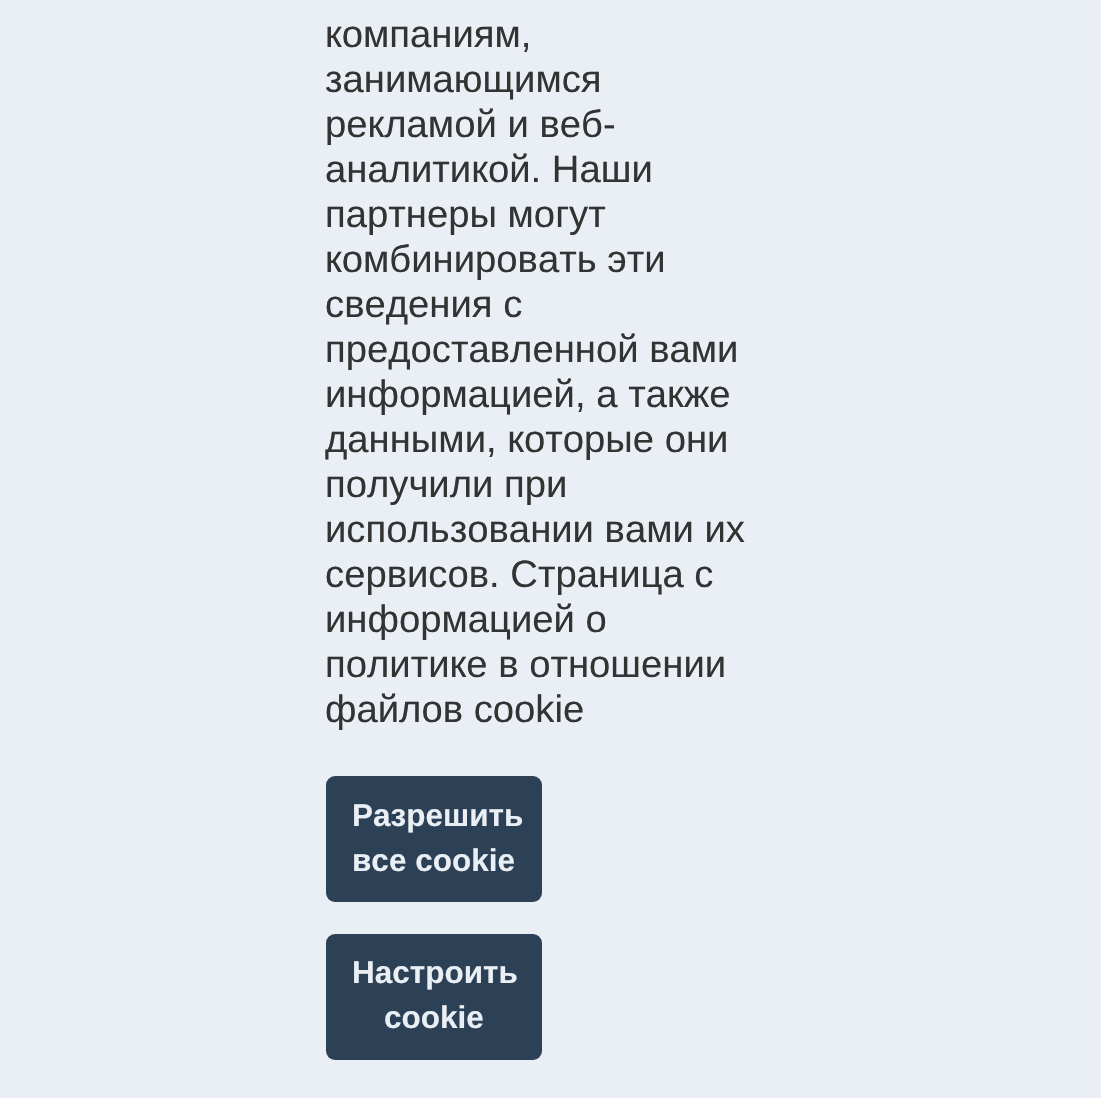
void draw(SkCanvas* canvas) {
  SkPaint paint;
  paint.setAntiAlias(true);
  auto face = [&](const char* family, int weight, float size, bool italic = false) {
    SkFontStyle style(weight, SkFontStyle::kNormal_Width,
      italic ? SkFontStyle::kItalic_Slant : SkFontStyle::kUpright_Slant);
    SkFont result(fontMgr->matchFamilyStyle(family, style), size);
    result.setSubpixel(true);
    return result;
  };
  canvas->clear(0xffe9eff4);
  paint.setColor(0xff2d4156);
  canvas->drawRoundRect(SkRect::MakeXYWH(326, 776, 216, 126), 9, 9, paint);
  canvas->drawRoundRect(SkRect::MakeXYWH(326, 934, 216, 126), 9, 9, paint);
  auto f0 = face("Liberation Sans", 400, 38.25f);
  paint.setColor(0xff333333);
  {
    const struct { const char* s; float x, y; } items[] = {
      {"компаниям,", 325, 47},
      {"занимающимся", 325, 92},
      {"рекламой и веб-", 325, 137},
      {"аналитикой. Наши", 325, 182},
      {"партнеры могут", 325, 227},
      {"комбинировать эти", 325, 272},
      {"сведения с", 325, 317},
      {"предоставленной вами", 325, 362},
      {"информацией, а также", 325, 407},
      {"данными, которые они", 325, 452},
      {"получили при", 325, 497},
      {"использовании вами их", 325, 542},
      {"сервисов. Страница с", 325, 587},
      {"информацией о", 325, 632},
      {"политике в отношении", 325, 677},
      {"файлов cookie", 325, 722},
    };
    for (auto [s, x, y] : items) {
      canvas->drawString(s, x, y, f0, paint);
    }
  }
  auto f1 = face("Liberation Sans", 700, 31.5f);
  paint.setColor(0xffe9eff4);
  {
    const struct { const char* s; float x, y; } items[] = {
      {"Разрешить", 352, 826},
      {"все cookie", 352, 871},
      {"Настроить", 352, 983},
      {"cookie", 384, 1028},
    };
    for (auto [s, x, y] : items) {
      canvas->drawString(s, x, y, f1, paint);
    }
  }
}
